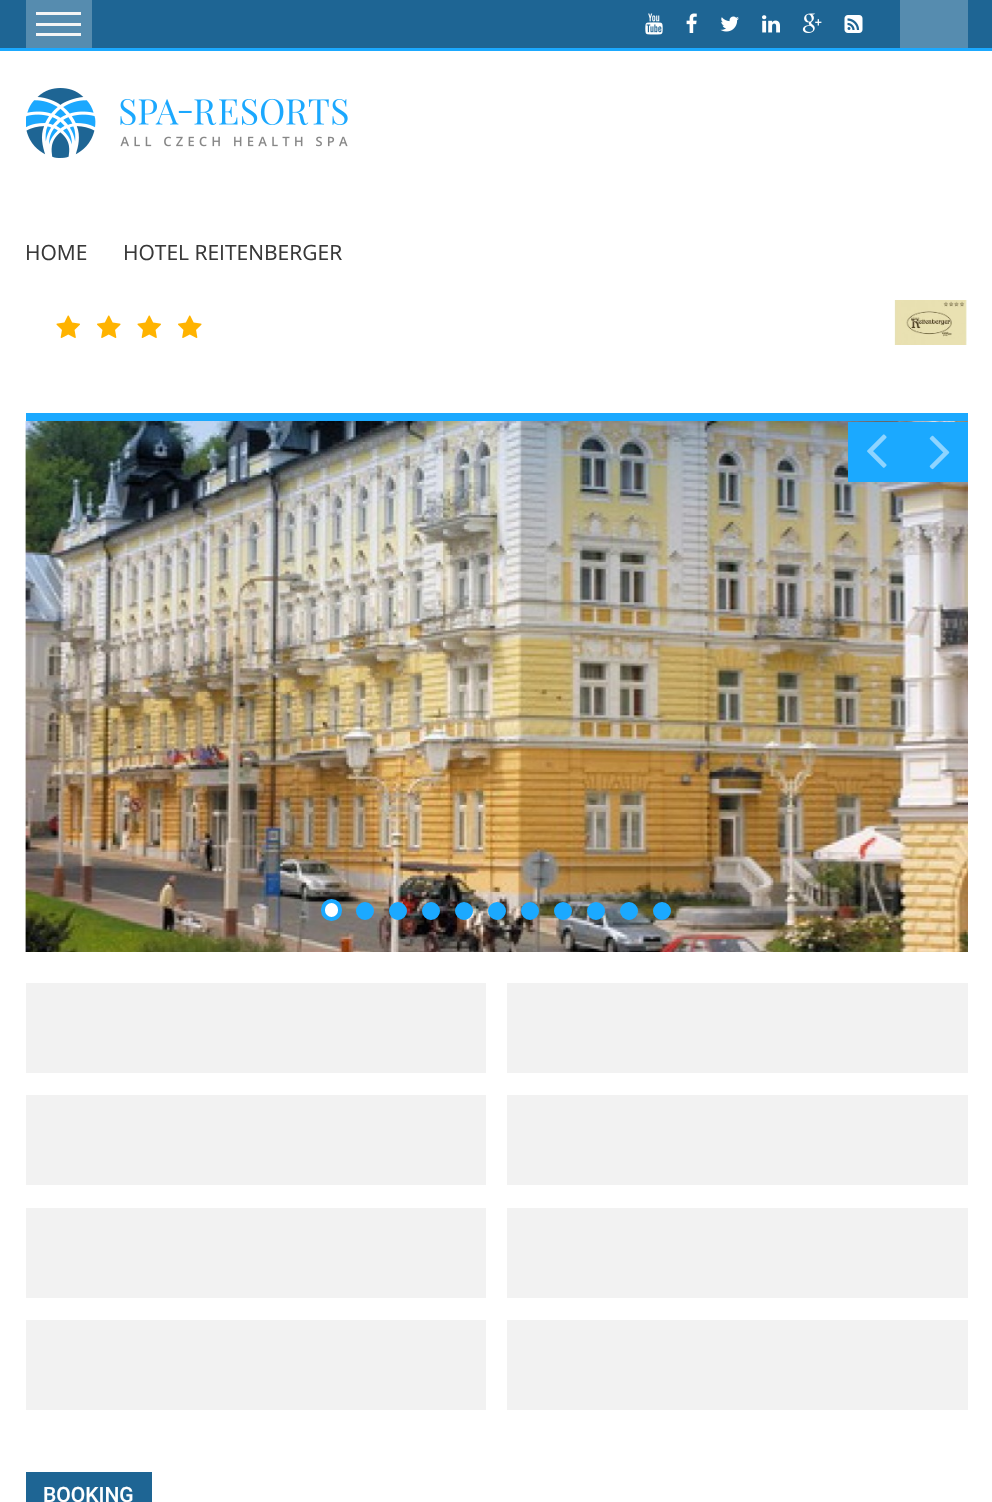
void draw(SkCanvas* canvas) {
  SkPaint paint;
  paint.setAntiAlias(true);
  auto face = [&](const char* family, int weight, float size, bool italic = false) {
    SkFontStyle style(weight, SkFontStyle::kNormal_Width,
      italic ? SkFontStyle::kItalic_Slant : SkFontStyle::kUpright_Slant);
    SkFont result(fontMgr->matchFamilyStyle(family, style), size);
    result.setSubpixel(true);
    return result;
  };
  auto paste = [&](const char* path, float x, float y, float w, float h) {
    auto image = SkImages::DeferredFromEncodedData(SkData::MakeFromFileName(path));
    canvas->drawImageRect(image, SkRect::MakeXYWH(x, y, w, h), SkSamplingOptions());
  };
  canvas->clear(0xffffffff);
  {
    const struct { float x, y, w, h; SkColor color; } items[] = {
      {0, 0, 992, 48, 0xff1e6594},
      {0, 48, 992, 3, 0xff1ba9ff},
      {26, 0, 66, 48, 0xff568caf},
      {36, 12, 45, 3, 0xfff5f5f5},
      {36, 23, 45, 3, 0xfff5f5f5},
      {36, 33, 45, 3, 0xfff5f5f5},
    };
    for (auto [x, y, w, h, color] : items) {
      paint.setColor(color);
      canvas->drawRect(SkRect::MakeXYWH(x, y, w, h), paint);
    }
  }
  paste("img/1.png", 645, 13, 18, 22);
  paste("img/2.png", 686, 13, 11, 20);
  paste("img/3.png", 720, 16, 19, 16);
  paste("img/4.png", 762, 15, 18, 18);
  paste("img/5.png", 802, 13, 20, 20);
  paste("img/6.png", 844, 15, 19, 18);
  paint.setColor(0xff568caf);
  canvas->drawRect(SkRect::MakeXYWH(900, 0, 68, 48), paint);
  paste("img/7.png", 26, 88, 322, 70);
  paint.setColor(0xff1ba9ff);
  canvas->drawRect(SkRect::MakeXYWH(26, 413, 942, 8), paint);
  paste("img/8.png", 56, 315, 24, 23);
  paste("img/9.png", 97, 315, 24, 23);
  paste("img/8.png", 137, 315, 24, 23);
  paste("img/9.png", 178, 315, 24, 23);
  paste("img/10.png", 894, 300, 73, 45);
  paste("img/11.png", 25, 421, 943, 531);
  paint.setColor(0xffffffff);
  canvas->drawRoundRect(SkRect::MakeXYWH(323, 901, 17, 18), 8.5f, 8.5f, paint);
  paint.setStroke(true);
  paint.setStrokeWidth(4);
  paint.setColor(0xff1ba9ff);
  canvas->drawRoundRect(SkRect::MakeXYWH(323, 901, 17, 18), 8.5f, 8.5f, paint);
  paint.setStroke(false);
  canvas->drawCircle(365, 911, 7.5f, paint);
  paint.setStroke(true);
  paint.setStrokeWidth(3);
  canvas->drawCircle(365, 911, 7.5f, paint);
  paint.setStroke(false);
  canvas->drawCircle(398, 911, 7.5f, paint);
  paint.setStroke(true);
  canvas->drawCircle(398, 911, 7.5f, paint);
  paint.setStroke(false);
  canvas->drawCircle(431, 911, 7.5f, paint);
  paint.setStroke(true);
  canvas->drawCircle(431, 911, 7.5f, paint);
  paint.setStroke(false);
  canvas->drawCircle(464, 911, 7.5f, paint);
  paint.setStroke(true);
  canvas->drawCircle(464, 911, 7.5f, paint);
  paint.setStroke(false);
  canvas->drawCircle(497, 911, 7.5f, paint);
  paint.setStroke(true);
  canvas->drawCircle(497, 911, 7.5f, paint);
  paint.setStroke(false);
  canvas->drawCircle(530, 911, 7.5f, paint);
  paint.setStroke(true);
  canvas->drawCircle(530, 911, 7.5f, paint);
  paint.setStroke(false);
  canvas->drawCircle(563, 911, 7.5f, paint);
  paint.setStroke(true);
  canvas->drawCircle(563, 911, 7.5f, paint);
  paint.setStroke(false);
  canvas->drawCircle(596, 911, 7.5f, paint);
  paint.setStroke(true);
  canvas->drawCircle(596, 911, 7.5f, paint);
  paint.setStroke(false);
  canvas->drawCircle(629, 911, 7.5f, paint);
  paint.setStroke(true);
  canvas->drawCircle(629, 911, 7.5f, paint);
  paint.setStroke(false);
  canvas->drawCircle(662, 911, 7.5f, paint);
  paint.setStroke(true);
  canvas->drawCircle(662, 911, 7.5f, paint);
  paint.setStroke(false);
  canvas->drawRect(SkRect::MakeXYWH(848, 422, 120, 60), paint);
  paste("img/12.png", 867, 434, 20, 34);
  paste("img/13.png", 929, 435, 21, 35);
  {
    const struct { float x, y, w, h; SkColor color; } items[] = {
      {26, 983, 460, 90, 0xfff2f2f2},
      {507, 983, 461, 90, 0xfff2f2f2},
      {26, 1095, 460, 90, 0xfff2f2f2},
      {507, 1095, 461, 90, 0xfff2f2f2},
      {26, 1208, 460, 90, 0xfff2f2f2},
      {507, 1208, 461, 90, 0xfff2f2f2},
      {26, 1320, 460, 90, 0xfff2f2f2},
      {507, 1320, 461, 90, 0xfff2f2f2},
      {26, 1472, 126, 30, 0xff1e6594},
    };
    for (auto [x, y, w, h, color] : items) {
      paint.setColor(color);
      canvas->drawRect(SkRect::MakeXYWH(x, y, w, h), paint);
    }
  }
  auto f0 = face("Open Sans", 400, 21);
  paint.setColor(0xff383838);
  canvas->drawString("HOME", 25, 260, f0, paint);
  canvas->drawString("HOTEL REITENBERGER", 123, 260, f0, paint);
  auto f1 = face("Roboto", 500, 21);
  paint.setColor(0xffffffff);
  canvas->drawString("BOOKING", 43, 1502, f1, paint);
}
